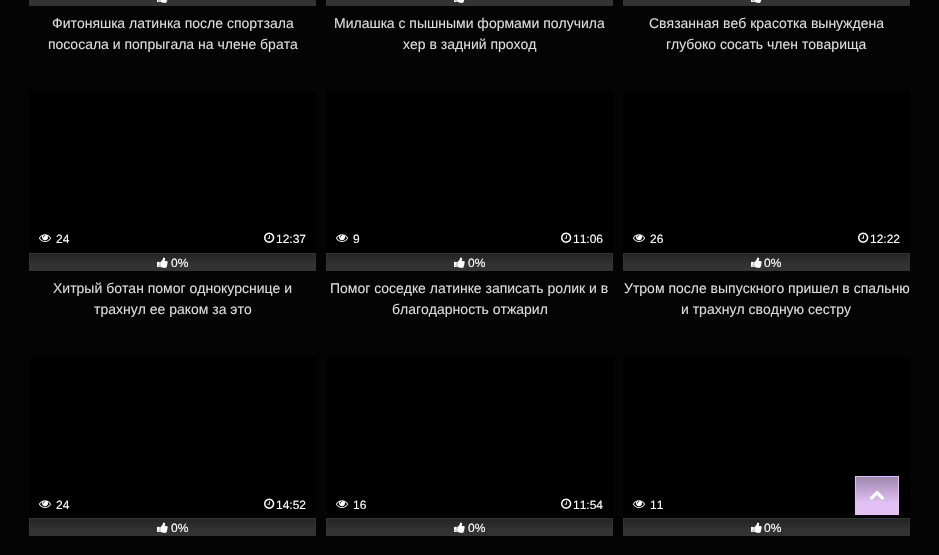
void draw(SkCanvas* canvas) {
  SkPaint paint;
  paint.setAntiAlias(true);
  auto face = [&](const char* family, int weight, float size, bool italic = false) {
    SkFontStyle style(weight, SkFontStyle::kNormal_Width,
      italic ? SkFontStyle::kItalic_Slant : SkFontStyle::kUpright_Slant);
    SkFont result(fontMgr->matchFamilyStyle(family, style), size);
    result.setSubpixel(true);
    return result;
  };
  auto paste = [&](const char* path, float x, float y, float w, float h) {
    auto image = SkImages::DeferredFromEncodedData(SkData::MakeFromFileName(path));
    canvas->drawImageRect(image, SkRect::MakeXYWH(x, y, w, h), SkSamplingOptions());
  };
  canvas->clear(0xff040404);
  paint.setColor(0xff333333);
  canvas->drawRect(SkRect::MakeXYWH(29.5f, -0.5f, 286, 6), paint);
  paint.setStroke(true);
  paint.setStrokeWidth(1);
  canvas->drawRect(SkRect::MakeXYWH(29.5f, -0.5f, 286, 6), paint);
  paste("img/1.png", 157, 0, 11, 3);
  paint.setStroke(false);
  canvas->drawRect(SkRect::MakeXYWH(326.5f, -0.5f, 286, 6), paint);
  paint.setStroke(true);
  canvas->drawRect(SkRect::MakeXYWH(326.5f, -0.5f, 286, 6), paint);
  paste("img/1.png", 454, 0, 11, 3);
  paint.setStroke(false);
  canvas->drawRect(SkRect::MakeXYWH(623.5f, -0.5f, 286, 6), paint);
  paint.setStroke(true);
  canvas->drawRect(SkRect::MakeXYWH(623.5f, -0.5f, 286, 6), paint);
  paste("img/1.png", 751, 0, 11, 3);
  paint.setStroke(false);
  paint.setColor(0xff000000);
  canvas->drawRect(SkRect::MakeXYWH(29, 91, 287, 162), paint);
  paste("img/2.png", 39, 234, 12, 8);
  paste("img/3.png", 264, 232, 11, 11);
  {
    const SkColor colors[] = {0xff242424, 0xff333333};
    const float stops[] = {0, 0.7f};
    const SkPoint ends[] = {{173, 254}, {173, 270}};
    paint.setShader(SkGradientShader::MakeLinear(ends, colors, stops, 2, SkTileMode::kClamp));
    paint.setAlpha(255);
  }
  canvas->drawRect(SkRect::MakeXYWH(30, 254, 285, 16), paint);
  paint.setStroke(true);
  paint.setShader(nullptr);
  paint.setColor(0xff333333);
  canvas->drawRect(SkRect::MakeXYWH(29.5f, 253.5f, 286, 17), paint);
  paste("img/4.png", 157, 257, 11, 11);
  paint.setStroke(false);
  paint.setColor(0xff000000);
  canvas->drawRect(SkRect::MakeXYWH(326, 91, 287, 162), paint);
  paste("img/2.png", 336, 234, 12, 8);
  paste("img/3.png", 561, 232, 11, 11);
  {
    const SkColor colors[] = {0xff242424, 0xff333333};
    const float stops[] = {0, 0.7f};
    const SkPoint ends[] = {{470, 254}, {470, 270}};
    paint.setShader(SkGradientShader::MakeLinear(ends, colors, stops, 2, SkTileMode::kClamp));
    paint.setAlpha(255);
  }
  canvas->drawRect(SkRect::MakeXYWH(327, 254, 285, 16), paint);
  paint.setStroke(true);
  paint.setShader(nullptr);
  paint.setColor(0xff333333);
  canvas->drawRect(SkRect::MakeXYWH(326.5f, 253.5f, 286, 17), paint);
  paste("img/4.png", 454, 257, 11, 11);
  paint.setStroke(false);
  paint.setColor(0xff000000);
  canvas->drawRect(SkRect::MakeXYWH(623, 91, 287, 162), paint);
  paste("img/2.png", 633, 234, 12, 8);
  paste("img/3.png", 858, 232, 11, 11);
  {
    const SkColor colors[] = {0xff242424, 0xff333333};
    const float stops[] = {0, 0.7f};
    const SkPoint ends[] = {{767, 254}, {767, 270}};
    paint.setShader(SkGradientShader::MakeLinear(ends, colors, stops, 2, SkTileMode::kClamp));
    paint.setAlpha(255);
  }
  canvas->drawRect(SkRect::MakeXYWH(624, 254, 285, 16), paint);
  paint.setStroke(true);
  paint.setShader(nullptr);
  paint.setColor(0xff333333);
  canvas->drawRect(SkRect::MakeXYWH(623.5f, 253.5f, 286, 17), paint);
  paste("img/4.png", 751, 257, 11, 11);
  paint.setStroke(false);
  paint.setColor(0xff000000);
  canvas->drawRect(SkRect::MakeXYWH(29, 357, 287, 161), paint);
  paste("img/2.png", 39, 500, 12, 8);
  paste("img/3.png", 264, 498, 11, 11);
  {
    const SkColor colors[] = {0xff242424, 0xff333333};
    const float stops[] = {0, 0.7f};
    const SkPoint ends[] = {{173, 519}, {173, 535}};
    paint.setShader(SkGradientShader::MakeLinear(ends, colors, stops, 2, SkTileMode::kClamp));
    paint.setAlpha(255);
  }
  canvas->drawRect(SkRect::MakeXYWH(30, 519, 285, 16), paint);
  paint.setStroke(true);
  paint.setShader(nullptr);
  paint.setColor(0xff333333);
  canvas->drawRect(SkRect::MakeXYWH(29.5f, 518.5f, 286, 17), paint);
  paste("img/4.png", 157, 522, 11, 11);
  paint.setStroke(false);
  paint.setColor(0xff000000);
  canvas->drawRect(SkRect::MakeXYWH(326, 357, 287, 161), paint);
  paste("img/2.png", 336, 500, 12, 8);
  paste("img/3.png", 561, 498, 11, 11);
  {
    const SkColor colors[] = {0xff242424, 0xff333333};
    const float stops[] = {0, 0.7f};
    const SkPoint ends[] = {{470, 519}, {470, 535}};
    paint.setShader(SkGradientShader::MakeLinear(ends, colors, stops, 2, SkTileMode::kClamp));
    paint.setAlpha(255);
  }
  canvas->drawRect(SkRect::MakeXYWH(327, 519, 285, 16), paint);
  paint.setStroke(true);
  paint.setShader(nullptr);
  paint.setColor(0xff333333);
  canvas->drawRect(SkRect::MakeXYWH(326.5f, 518.5f, 286, 17), paint);
  paste("img/4.png", 454, 522, 11, 11);
  paint.setStroke(false);
  paint.setColor(0xff000000);
  canvas->drawRect(SkRect::MakeXYWH(623, 357, 287, 161), paint);
  paste("img/2.png", 633, 500, 12, 8);
  {
    const SkColor colors[] = {0xff242424, 0xff333333};
    const float stops[] = {0, 0.7f};
    const SkPoint ends[] = {{767, 519}, {767, 535}};
    paint.setShader(SkGradientShader::MakeLinear(ends, colors, stops, 2, SkTileMode::kClamp));
    paint.setAlpha(255);
  }
  canvas->drawRect(SkRect::MakeXYWH(624, 519, 285, 16), paint);
  paint.setStroke(true);
  paint.setShader(nullptr);
  paint.setColor(0xff333333);
  canvas->drawRect(SkRect::MakeXYWH(623.5f, 518.5f, 286, 17), paint);
  paste("img/4.png", 751, 522, 11, 11);
  paint.setStroke(false);
  {
    const SkColor colors[] = {0xff9e87ac, 0xffe2c1f5};
    const float stops[] = {0, 0.7f};
    const SkPoint ends[] = {{877, 477}, {877, 514}};
    paint.setShader(SkGradientShader::MakeLinear(ends, colors, stops, 2, SkTileMode::kClamp));
    paint.setAlpha(255);
  }
  canvas->drawRect(SkRect::MakeXYWH(856, 477, 42, 37), paint);
  paint.setStroke(true);
  paint.setShader(nullptr);
  paint.setColor(0xffe2c1f5);
  canvas->drawRect(SkRect::MakeXYWH(855.5f, 476.5f, 43, 38), paint);
  paste("img/5.png", 869, 490, 16, 10);
  auto f0 = face("Liberation Sans", 400, 14);
  paint.setStroke(false);
  paint.setColor(0xffdddddd);
  {
    const struct { const char* s; float x, y; } items[] = {
      {"Фитоняшка латинка после спортзала", 52, 28},
      {"пососала и попрыгала на члене брата", 48, 49},
      {"Милашка с пышными формами получила", 334, 28},
      {"хер в задний проход", 403, 49},
      {"Связанная веб красотка вынуждена", 649, 28},
      {"глубоко сосать член товарища", 666, 49},
    };
    for (auto [s, x, y] : items) {
      canvas->drawString(s, x, y, f0, paint);
    }
  }
  auto f1 = face("Liberation Sans", 400, 12);
  paint.setColor(0xffffffff);
  {
    const struct { const char* s; float x, y; } items[] = {
      {"24", 56, 243},
      {"12:37", 276, 243},
      {"0%", 171, 267},
    };
    for (auto [s, x, y] : items) {
      canvas->drawString(s, x, y, f1, paint);
    }
  }
  paint.setColor(0xffdddddd);
  canvas->drawString("Хитрый ботан помог однокурснице и", 53, 293, f0, paint);
  canvas->drawString("трахнул ее раком за это", 94, 314, f0, paint);
  paint.setColor(0xffffffff);
  {
    const struct { const char* s; float x, y; } items[] = {
      {"9", 353, 243},
      {"11:06", 573, 243},
      {"0%", 468, 267},
    };
    for (auto [s, x, y] : items) {
      canvas->drawString(s, x, y, f1, paint);
    }
  }
  paint.setColor(0xffdddddd);
  canvas->drawString("Помог соседке латинке записать ролик и в", 330, 293, f0, paint);
  canvas->drawString("благодарность отжарил", 392, 314, f0, paint);
  paint.setColor(0xffffffff);
  {
    const struct { const char* s; float x, y; } items[] = {
      {"26", 650, 243},
      {"12:22", 870, 243},
      {"0%", 764, 267},
    };
    for (auto [s, x, y] : items) {
      canvas->drawString(s, x, y, f1, paint);
    }
  }
  paint.setColor(0xffdddddd);
  canvas->drawString("Утром после выпускного пришел в спальню", 624, 293, f0, paint);
  canvas->drawString("и трахнул сводную сестру", 681, 314, f0, paint);
  paint.setColor(0xffffffff);
  {
    const struct { const char* s; float x, y; } items[] = {
      {"24", 56, 509},
      {"14:52", 276, 509},
      {"0%", 171, 532},
      {"16", 353, 509},
      {"11:54", 573, 509},
      {"0%", 468, 532},
      {"11", 650, 509},
      {"0%", 764, 532},
    };
    for (auto [s, x, y] : items) {
      canvas->drawString(s, x, y, f1, paint);
    }
  }
}
